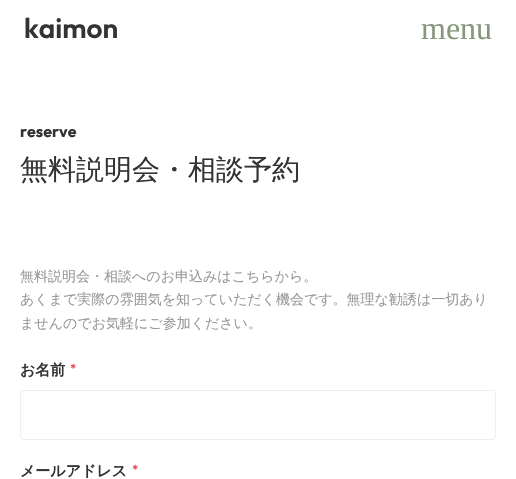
void draw(SkCanvas* canvas) {
  SkPaint paint;
  paint.setAntiAlias(true);
  auto face = [&](const char* family, int weight, float size, bool italic = false) {
    SkFontStyle style(weight, SkFontStyle::kNormal_Width,
      italic ? SkFontStyle::kItalic_Slant : SkFontStyle::kUpright_Slant);
    SkFont result(fontMgr->matchFamilyStyle(family, style), size);
    result.setSubpixel(true);
    return result;
  };
  canvas->clear(0xffffffff);
  paint.setStroke(true);
  paint.setStrokeWidth(1);
  paint.setColor(0xffeeeeee);
  canvas->drawRoundRect(SkRect::MakeXYWH(20.5f, 390.5f, 475, 49), 3.5f, 3.5f, paint);
  auto f0 = face("Outfit", 600, 28);
  paint.setStroke(false);
  paint.setColor(0xff333333);
  canvas->drawString("kaimon", 24, 38, f0, paint);
  auto f1 = face("Liberation Serif", 400, 32);
  paint.setColor(0xff87977e);
  canvas->drawString("menu", 421, 39, f1, paint);
  auto f2 = face("Outfit", 700, 16);
  paint.setColor(0xff333333);
  canvas->drawString("reserve", 20, 137, f2, paint);
  auto f3 = face("WenQuanYi Zen Hei", 500, 28);
  canvas->drawString("無料説明会・相談予約", 20, 179, f3, paint);
  auto f4 = face("WenQuanYi Zen Hei", 500, 14);
  paint.setColor(0xff999999);
  {
    const struct { const char* s; float x, y; } items[] = {
      {"無料説明会・相談へのお申込みはこちらから。", 20, 281},
      {"あくまで実際の雰囲気を知っていただく機会です。無理な勧誘は一切あり", 20, 304},
      {"ませんのでお気軽にご参加ください。", 20, 328},
    };
    for (auto [s, x, y] : items) {
      canvas->drawString(s, x, y, f4, paint);
    }
  }
  auto f5 = face("WenQuanYi Zen Hei", 700, 15);
  paint.setColor(0xff333333);
  canvas->drawString("お名前", 20, 375, f5, paint);
  auto f6 = face("Lato", 700, 15);
  paint.setColor(0xfff23a3c);
  canvas->drawString("*", 70, 375, f6, paint);
  paint.setColor(0xff333333);
  canvas->drawString("メールアドレス", 20, 476, f5, paint);
  paint.setColor(0xfff23a3c);
  canvas->drawString("*", 132, 476, f6, paint);
}
